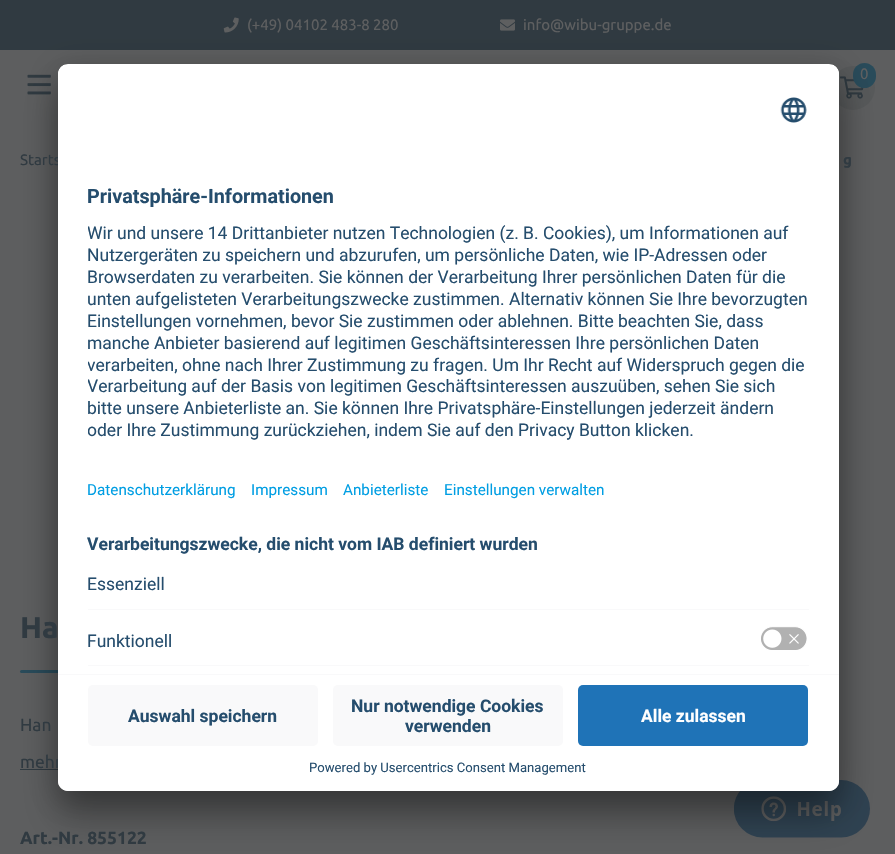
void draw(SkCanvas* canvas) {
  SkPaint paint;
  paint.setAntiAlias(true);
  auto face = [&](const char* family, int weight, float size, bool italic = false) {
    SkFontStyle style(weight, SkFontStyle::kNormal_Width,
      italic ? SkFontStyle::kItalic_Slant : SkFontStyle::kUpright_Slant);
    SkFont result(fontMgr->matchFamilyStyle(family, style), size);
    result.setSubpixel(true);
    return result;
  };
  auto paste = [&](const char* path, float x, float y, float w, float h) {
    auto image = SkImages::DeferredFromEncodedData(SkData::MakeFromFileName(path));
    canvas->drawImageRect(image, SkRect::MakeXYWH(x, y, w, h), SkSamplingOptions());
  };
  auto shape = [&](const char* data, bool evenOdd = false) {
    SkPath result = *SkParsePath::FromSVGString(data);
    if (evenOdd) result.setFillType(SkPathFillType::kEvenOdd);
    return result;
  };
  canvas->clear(0xff5d5e5f);
  paint.setColor(0xff303a41);
  canvas->drawRect(SkRect::MakeXYWH(0, 0, 895, 50), paint);
  paste("img/1.png", 223, 17, 16, 16);
  paste("img/2.png", 500, 19, 15, 12);
  paste("img/3.png", 27, 74, 24, 21);
  paint.setColor(0xff57595a);
  canvas->drawCircle(853, 88, 22, paint);
  paste("img/4.png", 840, 76, 24, 23);
  paint.setColor(0xff294b5a);
  canvas->drawRoundRect(SkRect::MakeXYWH(853, 63, 23, 25), 11.5f, 11.5f, paint);
  canvas->drawRoundRect(SkRect::MakeXYWH(20, 670, 50, 3), 1.5f, 1.5f, paint);
  paint.setColor(0xff303a41);
  canvas->drawRect(SkRect::MakeXYWH(20, 769, 38, 1), paint);
  paste("img/7.png", 734, 780, 136, 58);
  paint.setColor(0x4d000000);
  paint.setMaskFilter(SkMaskFilter::MakeBlur(kNormal_SkBlurStyle, 17.5f));
  canvas->drawRoundRect(SkRect::MakeXYWH(58, 89, 781, 727), 10, 10, paint);
  paint.setMaskFilter(nullptr);
  paint.setColor(0x38000000);
  paint.setMaskFilter(SkMaskFilter::MakeBlur(kNormal_SkBlurStyle, 16));
  canvas->drawRoundRect(SkRect::MakeXYWH(58, 70, 781, 728), 10, 10, paint);
  paint.setMaskFilter(nullptr);
  auto f0 = face("Ubuntu", 400, 15);
  paint.setColor(0xff5e5f60);
  {
    const struct { const char* s; float x, y; } items[] = {
      {"(+49) 04102 483-8 280", 247, 30},
      {"info@wibu-gruppe.de", 523, 30},
      {"0", 860, 79},
    };
    for (auto [s, x, y] : items) {
      canvas->drawString(s, x, y, f0, paint);
    }
  }
  paint.setColor(0xff303a41);
  canvas->drawString("Starts", 20, 165, f0, paint);
  auto f1 = face("Ubuntu", 700, 15);
  canvas->drawString("g", 843, 165, f1, paint);
  auto f2 = face("Ubuntu", 700, 30);
  canvas->drawString("Ha", 20, 638, f2, paint);
  auto f3 = face("Ubuntu", 400, 17.5f);
  canvas->drawString("Han", 20, 731, f3, paint);
  canvas->drawString("mehr", 20, 768, f3, paint);
  auto f4 = face("Ubuntu", 700, 17.5f);
  canvas->drawString("Art.-Nr. 855122", 20, 844, f4, paint);
  paint.setColor(0xffffffff);
  canvas->drawRoundRect(SkRect::MakeXYWH(58, 64, 781, 727), 10, 10, paint);
  canvas->save();
  canvas->clipPath(shape("M68 64H829C834.5 64 839 68.5 839 74V781C839 786.5 834.5 791 829 791H68C62.5 791 58 786.5 58 781V74C58 68.5 62.5 64 68 64Z"), true);
  canvas->clipPath(shape("M68 64H829C834.5 64 839 68.5 839 74V674H58V74C58 68.5 62.5 64 68 64Z"), true);
  canvas->drawRect(SkRect::MakeXYWH(58, 65, 781, 609), paint);
  canvas->drawRect(SkRect::MakeXYWH(58, 65, 781, 454), paint);
  canvas->restore();
  paste("img/5.png", 780, 97, 27, 26);
  auto f5 = face("Roboto", 700, 19.75f);
  paint.setColor(0xff254d6d);
  canvas->drawString("Privatsphäre-Informationen", 87, 203, f5, paint);
  canvas->save();
  canvas->clipRect(SkRect::MakeXYWH(88, 218, 721, 228));
  auto f6 = face("Roboto", 400, 17.5f);
  canvas->drawString("Wir und unsere 14 Drittanbieter nutzen Technologien (z. B. Cookies), um Informationen auf", 87, 239, f6, paint);
  canvas->restore();
  {
    const struct { const char* s; float x, y; } items[] = {
      {"Nutzergeräten zu speichern und abzurufen, um persönliche Daten, wie IP-Adressen oder", 87, 261},
      {"Browserdaten zu verarbeiten. Sie können der Verarbeitung Ihrer persönlichen Daten für die", 87, 283},
      {"unten aufgelisteten Verarbeitungszwecke zustimmen. Alternativ können Sie Ihre bevorzugten", 87, 305},
      {"Einstellungen vornehmen, bevor Sie zustimmen oder ablehnen. Bitte beachten Sie, dass", 87, 327},
      {"manche Anbieter basierend auf legitimen Geschäftsinteressen Ihre persönlichen Daten", 87, 349},
    };
    for (auto [s, x, y] : items) {
      canvas->drawString(s, x, y, f6, paint);
    }
  }
  canvas->save();
  canvas->clipRect(SkRect::MakeXYWH(88, 218, 721, 228));
  canvas->drawString("verarbeiten, ohne nach Ihrer Zustimmung zu fragen. Um Ihr Recht auf Widerspruch gegen die", 87, 371, f6, paint);
  canvas->drawString("Verarbeitung auf der Basis von legitimen Geschäftsinteressen auszuüben, sehen Sie sich", 87, 392, f6, paint);
  canvas->restore();
  canvas->drawString("bitte unsere Anbieterliste an. Sie können Ihre Privatsphäre-Einstellungen jederzeit ändern", 87, 414, f6, paint);
  canvas->save();
  canvas->clipRect(SkRect::MakeXYWH(88, 218, 721, 228));
  canvas->drawString("oder Ihre Zustimmung zurückziehen, indem Sie auf den Privacy Button klicken.", 87, 436, f6, paint);
  canvas->restore();
  auto f7 = face("Roboto", 400, 15.25f);
  paint.setColor(0xff009ee3);
  {
    const struct { const char* s; float x, y; } items[] = {
      {"Datenschutzerklärung", 87, 495},
      {"Impressum", 251, 495},
      {"Anbieterliste", 343, 495},
      {"Einstellungen verwalten", 444, 495},
    };
    for (auto [s, x, y] : items) {
      canvas->drawString(s, x, y, f7, paint);
    }
  }
  auto f8 = face("Roboto", 700, 17.5f);
  paint.setColor(0xff254d6d);
  canvas->drawString("Verarbeitungszwecke, die nicht vom IAB definiert wurden", 87, 550, f8, paint);
  paint.setColor(0xfff9f9fa);
  canvas->drawRect(SkRect::MakeXYWH(88, 609, 721, 1), paint);
  paint.setColor(0xff254d6d);
  canvas->drawString("Essenziell", 87, 590, f6, paint);
  paint.setColor(0xfff9f9fa);
  canvas->drawRect(SkRect::MakeXYWH(88, 665, 721, 1), paint);
  paint.setColor(0xff254d6d);
  canvas->drawString("Funktionell", 87, 647, f6, paint);
  paste("img/6.png", 761, 626, 46, 24);
  paint.setColor(0xffffffff);
  canvas->drawPath(shape("M58 674H839V781C839 786.5 834.5 791 829 791H68C62.5 791 58 786.5 58 781Z"), paint);
  paint.setColor(0xfff9f9fa);
  canvas->drawRect(SkRect::MakeXYWH(58, 674, 781, 1), paint);
  canvas->drawRoundRect(SkRect::MakeXYWH(88, 685, 230, 61), 5, 5, paint);
  paint.setColor(0xff254d6d);
  canvas->drawString("Auswahl speichern", 128, 722, f8, paint);
  paint.setColor(0xfff9f9fa);
  canvas->drawRoundRect(SkRect::MakeXYWH(333, 685, 230, 61), 5, 5, paint);
  paint.setColor(0xff254d6d);
  canvas->drawString("Nur notwendige Cookies", 351, 712, f8, paint);
  canvas->drawString("verwenden", 405, 732, f8, paint);
  paint.setColor(0xff1f73b7);
  canvas->drawRoundRect(SkRect::MakeXYWH(578, 685, 230, 61), 5, 5, paint);
  paint.setColor(0xffffffff);
  canvas->drawString("Alle zulassen", 641, 722, f8, paint);
  auto f9 = face("Roboto", 400, 13.1f);
  paint.setColor(0xff254d6d);
  canvas->drawString("Powered by Usercentrics Consent Management", 309, 772, f9, paint);
}
